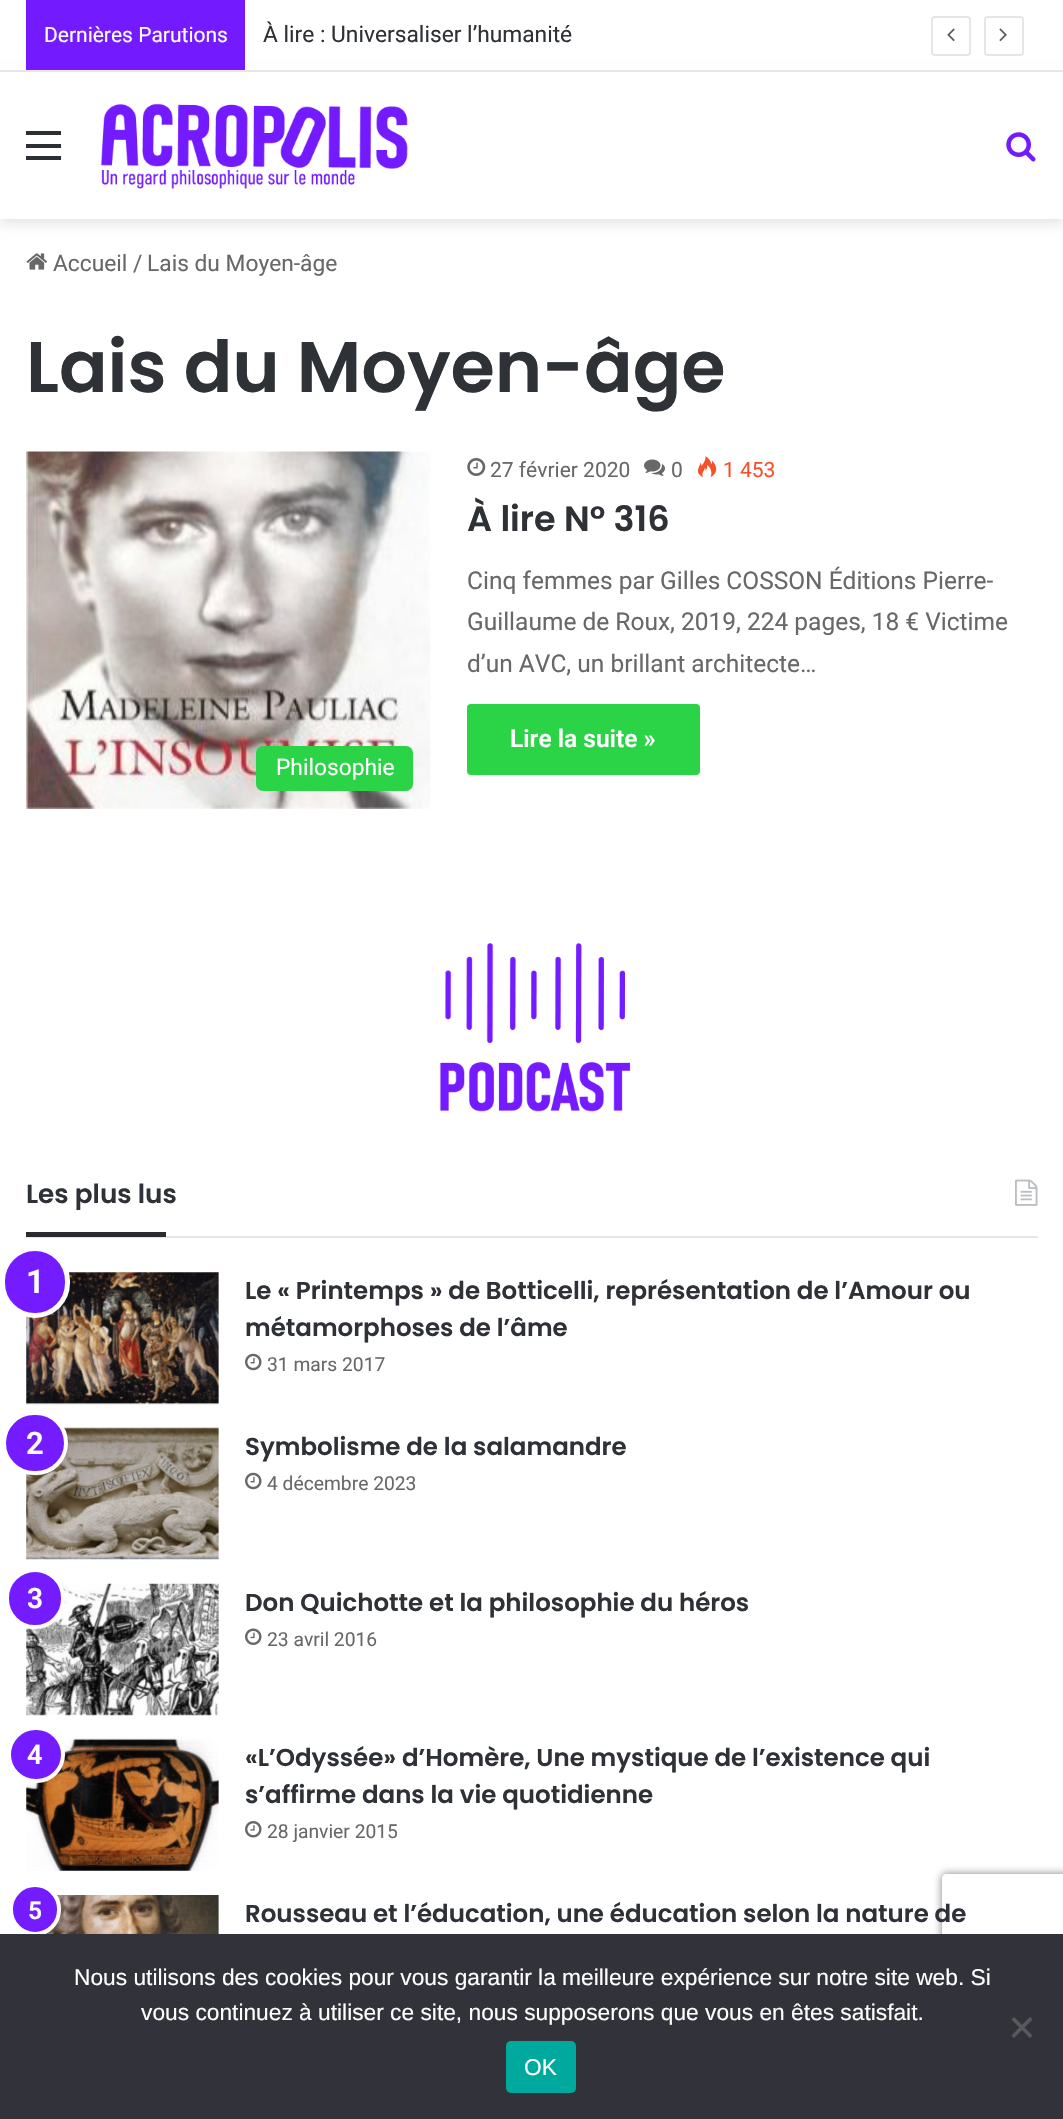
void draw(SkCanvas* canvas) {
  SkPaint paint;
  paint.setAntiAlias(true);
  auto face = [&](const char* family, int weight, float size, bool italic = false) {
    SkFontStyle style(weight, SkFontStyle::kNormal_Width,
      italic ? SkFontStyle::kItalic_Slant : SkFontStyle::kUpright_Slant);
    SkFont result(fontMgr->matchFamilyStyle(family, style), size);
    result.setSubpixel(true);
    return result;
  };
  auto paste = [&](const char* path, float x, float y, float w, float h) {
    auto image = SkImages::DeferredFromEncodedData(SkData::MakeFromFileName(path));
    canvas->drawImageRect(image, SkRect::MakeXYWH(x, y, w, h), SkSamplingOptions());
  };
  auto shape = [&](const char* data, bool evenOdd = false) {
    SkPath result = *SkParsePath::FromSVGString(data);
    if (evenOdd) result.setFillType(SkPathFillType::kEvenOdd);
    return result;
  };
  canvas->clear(0xffffffff);
  paint.setColor(0x1a000000);
  paint.setMaskFilter(SkMaskFilter::MakeBlur(kNormal_SkBlurStyle, 6));
  canvas->drawRect(SkRect::MakeXYWH(0, 77, 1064, 147), paint);
  paint.setMaskFilter(nullptr);
  {
    const struct { float x, y, w, h; SkColor color; } items[] = {
      {10, 69, 1044, 1, 0xffffffff},
      {0, 70, 1063, 2, 0xffe6e6e6},
      {26, 0, 219, 70, 0xff731aff},
    };
    for (auto [x, y, w, h, color] : items) {
      paint.setColor(color);
      canvas->drawRect(SkRect::MakeXYWH(x, y, w, h), paint);
    }
  }
  paint.setStroke(true);
  paint.setStrokeWidth(2);
  paint.setColor(0xffe6e6e6);
  canvas->drawRoundRect(SkRect::MakeXYWH(932, 17, 38, 38), 3, 3, paint);
  paste("img/1.png", 947, 28, 8, 14);
  canvas->drawRoundRect(SkRect::MakeXYWH(985, 17, 38, 38), 3, 3, paint);
  paste("img/2.png", 999, 28, 8, 14);
  paint.setStroke(false);
  {
    const struct { float x, y, w, h; SkColor color; } items[] = {
      {0, 72, 1063, 147, 0xffffffff},
      {26, 144, 35, 4, 0xff2c2f34},
      {26, 131, 35, 4, 0xff2c2f34},
      {26, 156, 35, 4, 0xff2c2f34},
    };
    for (auto [x, y, w, h, color] : items) {
      paint.setColor(color);
      canvas->drawRect(SkRect::MakeXYWH(x, y, w, h), paint);
    }
  }
  paste("img/3.png", 100, 103, 308, 86);
  paste("img/4.png", 1006, 132, 30, 30);
  paste("img/5.png", 26, 253, 21, 17);
  paste("img/6.png", 467, 458, 19, 18);
  paste("img/7.png", 644, 459, 21, 17);
  paste("img/8.png", 697, 456, 20, 22);
  paint.setColor(0xff2bd347);
  canvas->drawRoundRect(SkRect::MakeXYWH(467, 704, 233, 71), 4, 4, paint);
  paste("img/9.png", 26, 451, 405, 358);
  canvas->drawRoundRect(SkRect::MakeXYWH(256, 746, 157, 45), 7, 7, paint);
  paste("img/10.png", 440, 943, 191, 169);
  paint.setColor(0xffe6e6e6);
  canvas->drawRect(SkRect::MakeXYWH(26, 1236, 1012, 2), paint);
  paste("img/11.png", 1015, 1179, 23, 27);
  paint.setColor(0xff292b2f);
  canvas->drawRect(SkRect::MakeXYWH(26, 1232, 140, 5), paint);
  paste("img/12.png", 26, 1272, 193, 133);
  paint.setColor(0xff741cff);
  canvas->drawRoundRect(SkRect::MakeXYWH(2.5f, 1248.5f, 65, 67), 32.5f, 32.5f, paint);
  paint.setStroke(true);
  paint.setStrokeWidth(5);
  paint.setColor(0xffffffff);
  canvas->drawRoundRect(SkRect::MakeXYWH(2.5f, 1248.5f, 65, 67), 32.5f, 32.5f, paint);
  paste("img/13.png", 245, 1353, 17, 18);
  paste("img/14.png", 26, 1427, 193, 133);
  paint.setStroke(false);
  paint.setColor(0xff741cff);
  canvas->drawRoundRect(SkRect::MakeXYWH(4, 1413, 62, 60), 30, 30, paint);
  paint.setStroke(true);
  paint.setStrokeWidth(4);
  paint.setColor(0xffffffff);
  canvas->drawRoundRect(SkRect::MakeXYWH(4, 1413, 62, 60), 30, 30, paint);
  paste("img/13.png", 245, 1472, 17, 18);
  paste("img/15.png", 26, 1583, 193, 133);
  paint.setStroke(false);
  paint.setColor(0xff741cff);
  canvas->drawRoundRect(SkRect::MakeXYWH(7, 1570, 56, 57), 28, 28, paint);
  paint.setStroke(true);
  paint.setColor(0xffffffff);
  canvas->drawRoundRect(SkRect::MakeXYWH(7, 1570, 56, 57), 28, 28, paint);
  paste("img/16.png", 245, 1628, 17, 17);
  paste("img/17.png", 26, 1738, 193, 133);
  paint.setStroke(false);
  paint.setColor(0xff741cff);
  canvas->drawRoundRect(SkRect::MakeXYWH(9, 1728, 54, 53), 26.5f, 26.5f, paint);
  paint.setStroke(true);
  paint.setColor(0xffffffff);
  canvas->drawRoundRect(SkRect::MakeXYWH(9, 1728, 54, 53), 26.5f, 26.5f, paint);
  paste("img/18.png", 245, 1821, 17, 17);
  paste("img/19.png", 45, 1895, 174, 39);
  paint.setStroke(false);
  paint.setColor(0xff741cff);
  canvas->drawRoundRect(SkRect::MakeXYWH(11, 1885, 48, 49), 24, 24, paint);
  paint.setStroke(true);
  paint.setColor(0xffffffff);
  canvas->drawRoundRect(SkRect::MakeXYWH(11, 1885, 48, 49), 24, 24, paint);
  canvas->save();
  canvas->clipPath(shape("M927 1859H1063V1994H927ZM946 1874H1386C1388 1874 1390 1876 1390 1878V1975C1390 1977 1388 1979 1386 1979H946C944 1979 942 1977 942 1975V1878C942 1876 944 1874 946 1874Z", true), true);
  paint.setStroke(false);
  paint.setColor(0xff808080);
  paint.setMaskFilter(SkMaskFilter::MakeBlur(kNormal_SkBlurStyle, 4.5f));
  canvas->drawRoundRect(SkRect::MakeXYWH(942, 1874, 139, 105), 4, 4, paint);
  paint.setMaskFilter(nullptr);
  canvas->restore();
  paint.setColor(0xff32323a);
  canvas->drawRect(SkRect::MakeXYWH(0, 1934, 1063, 185), paint);
  paint.setColor(0xff59595d);
  canvas->drawPath(shape("M1030 2017L1032.5 2019.5L1014 2038L1011.5 2035.5Z"), paint);
  canvas->drawPath(shape("M1011.5 2019.5L1014 2017L1032.5 2035.5L1030 2038Z"), paint);
  paint.setColor(0xff00a99d);
  canvas->drawRoundRect(SkRect::MakeXYWH(506, 2041, 70, 52), 5, 5, paint);
  auto f0 = face("Roboto", 400, 21);
  paint.setColor(0xffffffff);
  canvas->drawString("Dernières Parutions", 44, 42, f0, paint);
  auto f1 = face("Roboto", 400, 22.75f);
  paint.setColor(0xff2e3136);
  canvas->drawString("À lire : Universaliser l’humanité", 263, 42, f1, paint);
  paint.setColor(0xff686868);
  {
    const struct { const char* s; float x, y; } items[] = {
      {"Accueil", 53, 271},
      {"/", 133, 271},
      {"Lais du Moyen-âge", 147, 271},
    };
    for (auto [s, x, y] : items) {
      canvas->drawString(s, x, y, f1, paint);
    }
  }
  auto f2 = face("Poppins", 600, 71.75f);
  paint.setColor(0xff2e3136);
  canvas->drawString("Lais du Moyen-âge", 26, 392, f2, paint);
  paint.setColor(0xff686868);
  canvas->drawString("27 février 2020", 490, 477, f0, paint);
  canvas->drawString("0", 671, 477, f0, paint);
  paint.setColor(0xfff3522c);
  canvas->drawString("1 453", 723, 477, f0, paint);
  auto f3 = face("Poppins", 600, 35);
  paint.setColor(0xff2e3136);
  canvas->drawString("À lire N° 316", 467, 531, f3, paint);
  auto f4 = face("Roboto", 400, 24.5f);
  paint.setColor(0xff686868);
  {
    const struct { const char* s; float x, y; } items[] = {
      {"Cinq femmes par Gilles COSSON Éditions Pierre-", 467, 589},
      {"Guillaume de Roux, 2019, 224 pages, 18 € Victime", 467, 630},
      {"d’un AVC, un brillant architecte…", 467, 672},
    };
    for (auto [s, x, y] : items) {
      canvas->drawString(s, x, y, f4, paint);
    }
  }
  auto f5 = face("Roboto", 600, 24.5f);
  paint.setColor(0xffffffff);
  canvas->drawString("Lire la suite »", 510, 747, f5, paint);
  canvas->drawString("Philosophie", 276, 775, f1, paint);
  auto f6 = face("Poppins", 600, 26.25f);
  paint.setColor(0xff2e3136);
  canvas->drawString("Les plus lus", 26, 1203, f6, paint);
  auto f7 = face("Roboto", 600, 33);
  paint.setColor(0xffffffff);
  canvas->drawString("1", 26, 1293, f7, paint);
  auto f8 = face("Poppins", 600, 24.5f);
  paint.setColor(0xff2e3136);
  canvas->drawString("Le « Printemps » de Botticelli, représentation de l’Amour ou", 245, 1299, f8, paint);
  canvas->drawString("métamorphoses de l’âme", 245, 1336, f8, paint);
  auto f9 = face("Roboto", 400, 19.25f);
  paint.setColor(0xff686868);
  canvas->drawString("31 mars 2017", 267, 1371, f9, paint);
  auto f10 = face("Roboto", 600, 31);
  paint.setColor(0xffffffff);
  canvas->drawString("2", 26, 1454, f10, paint);
  paint.setColor(0xff2e3136);
  canvas->drawString("Symbolisme de la salamandre", 245, 1455, f8, paint);
  paint.setColor(0xff686868);
  canvas->drawString("4 décembre 2023", 267, 1490, f9, paint);
  auto f11 = face("Roboto", 600, 28);
  paint.setColor(0xffffffff);
  canvas->drawString("3", 27, 1608, f11, paint);
  paint.setColor(0xff2e3136);
  canvas->drawString("Don Quichotte et la philosophie du héros", 245, 1611, f8, paint);
  paint.setColor(0xff686868);
  canvas->drawString("23 avril 2016", 267, 1646, f9, paint);
  auto f12 = face("Roboto", 600, 27);
  paint.setColor(0xffffffff);
  canvas->drawString("4", 27, 1764, f12, paint);
  paint.setColor(0xff2e3136);
  canvas->drawString("«L’Odyssée» d’Homère, Une mystique de l’existence qui", 245, 1766, f8, paint);
  canvas->drawString("s’affirme dans la vie quotidienne", 245, 1803, f8, paint);
  paint.setColor(0xff686868);
  canvas->drawString("28 janvier 2015", 267, 1838, f9, paint);
  paint.setColor(0xffffffff);
  canvas->drawString("5", 28, 1919, f5, paint);
  paint.setColor(0xff2e3136);
  canvas->drawString("Rousseau et l’éducation, une éducation selon la nature de", 245, 1922, f8, paint);
  auto f13 = face("Liberation Sans", 400, 22.75f);
  paint.setColor(0xffffffff);
  {
    const struct { const char* s; float x, y; } items[] = {
      {"Nous utilisons des cookies pour vous garantir la meilleure expérience sur notre site web. Si", 74, 1985},
      {"vous continuez à utiliser ce site, nous supposerons que vous en êtes satisfait.", 141, 2020},
      {"OK", 524, 2075},
    };
    for (auto [s, x, y] : items) {
      canvas->drawString(s, x, y, f13, paint);
    }
  }
}
